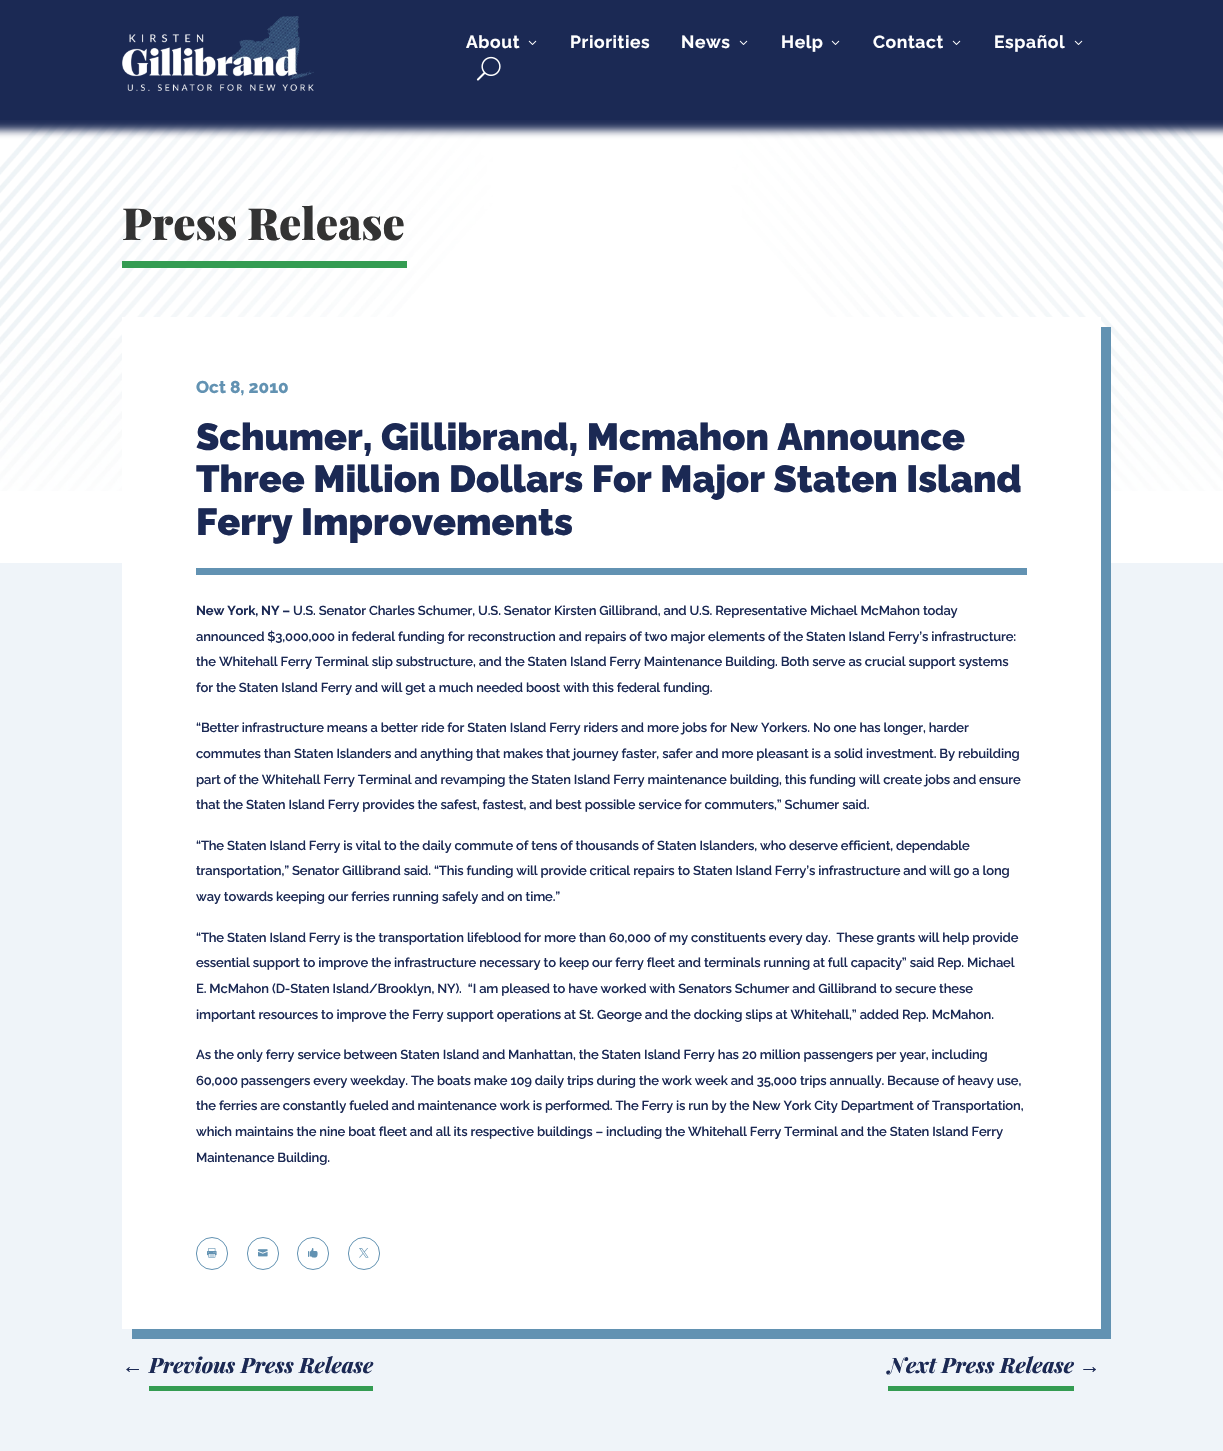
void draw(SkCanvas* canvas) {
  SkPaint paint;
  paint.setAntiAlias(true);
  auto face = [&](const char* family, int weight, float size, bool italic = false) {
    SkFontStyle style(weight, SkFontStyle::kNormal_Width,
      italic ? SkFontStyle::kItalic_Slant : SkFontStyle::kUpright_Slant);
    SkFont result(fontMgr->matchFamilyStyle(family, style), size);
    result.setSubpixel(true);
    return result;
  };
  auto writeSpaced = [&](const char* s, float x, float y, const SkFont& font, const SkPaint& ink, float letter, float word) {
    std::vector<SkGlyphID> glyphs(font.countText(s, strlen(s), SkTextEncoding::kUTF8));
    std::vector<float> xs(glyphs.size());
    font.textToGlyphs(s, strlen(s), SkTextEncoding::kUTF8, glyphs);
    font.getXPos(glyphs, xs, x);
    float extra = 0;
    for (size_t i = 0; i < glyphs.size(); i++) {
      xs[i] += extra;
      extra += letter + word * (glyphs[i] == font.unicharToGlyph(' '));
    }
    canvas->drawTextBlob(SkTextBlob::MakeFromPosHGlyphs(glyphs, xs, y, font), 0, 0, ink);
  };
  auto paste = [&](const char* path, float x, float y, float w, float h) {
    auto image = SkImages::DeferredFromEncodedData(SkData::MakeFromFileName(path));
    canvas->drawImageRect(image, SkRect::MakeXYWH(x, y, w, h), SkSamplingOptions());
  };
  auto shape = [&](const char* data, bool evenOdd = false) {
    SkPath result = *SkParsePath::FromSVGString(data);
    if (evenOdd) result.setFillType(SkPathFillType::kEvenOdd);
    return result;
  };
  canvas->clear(0xffffffff);
  paste("img/4.png", 0, 120, 1223, 371);
  paint.setColor(0xfa1b2954);
  paint.setMaskFilter(SkMaskFilter::MakeBlur(kNormal_SkBlurStyle, 4));
  canvas->drawRect(SkRect::MakeXYWH(-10, -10, 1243, 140), paint);
  paint.setMaskFilter(nullptr);
  paint.setColor(0xff1b2954);
  canvas->drawRect(SkRect::MakeXYWH(0, 0, 1223, 120), paint);
  paste("img/1.png", 122, 16, 192, 75);
  paste("img/2.png", 528, 40, 9, 5);
  paste("img/2.png", 739, 40, 9, 5);
  paste("img/2.png", 831, 40, 9, 5);
  paste("img/2.png", 952, 40, 9, 5);
  paste("img/2.png", 1074, 40, 9, 5);
  paste("img/3.png", 476, 56, 25, 25);
  paint.setColor(0xff349c52);
  canvas->drawRect(SkRect::MakeXYWH(122, 261, 285, 7), paint);
  paint.setColor(0xffeff4f9);
  canvas->drawRect(SkRect::MakeXYWH(0, 563, 1223, 888), paint);
  paint.setColor(0xff6292b2);
  canvas->drawPath(shape("M132 1329V1339H1111V327H1101V1329Z"), paint);
  paint.setColor(0xffffffff);
  canvas->drawRect(SkRect::MakeXYWH(122, 317, 979, 1012), paint);
  paint.setColor(0xff6292b2);
  canvas->drawRect(SkRect::MakeXYWH(196, 568, 831, 7), paint);
  paint.setStroke(true);
  paint.setStrokeWidth(1);
  canvas->drawRoundRect(SkRect::MakeXYWH(196.5f, 1237.5f, 31, 32), 15.5f, 15.5f, paint);
  paste("img/5.png", 207, 1248, 10, 10);
  canvas->drawRoundRect(SkRect::MakeXYWH(247.5f, 1237.5f, 31, 32), 15.5f, 15.5f, paint);
  paste("img/6.png", 258, 1249, 10, 8);
  canvas->drawRoundRect(SkRect::MakeXYWH(297.5f, 1237.5f, 31, 32), 15.5f, 15.5f, paint);
  paste("img/7.png", 308, 1248, 10, 10);
  canvas->drawRoundRect(SkRect::MakeXYWH(348.5f, 1237.5f, 31, 32), 15.5f, 15.5f, paint);
  paste("img/8.png", 359, 1248, 10, 10);
  paint.setStroke(false);
  paint.setColor(0xff349c52);
  canvas->drawRect(SkRect::MakeXYWH(149, 1386, 224, 5), paint);
  canvas->drawRect(SkRect::MakeXYWH(888, 1386, 186, 5), paint);
  auto f0 = face("Raleway", 700, 17.5f);
  paint.setColor(0xffffffff);
  {
    const struct { const char* s; float x, y; } items[] = {
      {"About", 466, 48},
      {"Priorities", 570, 48},
      {"News", 681, 48},
      {"Help", 781, 48},
      {"Contact", 873, 48},
      {"Español", 994, 48},
    };
    for (auto [s, x, y] : items) {
      writeSpaced(s, x, y, f0, paint, 0.6f, 0);
    }
  }
  auto f1 = face("Playfair Display", 900, 44.25f);
  paint.setColor(0xff333333);
  canvas->drawString("Press Release", 122, 240, f1, paint);
  auto f2 = face("Raleway", 800, 17.25f);
  paint.setColor(0xff6292b2);
  canvas->drawString("Oct 8, 2010", 196, 393, f2, paint);
  auto f3 = face("Raleway", 900, 37.75f);
  paint.setColor(0xff1b2954);
  {
    const struct { const char* s; float x, y; } items[] = {
      {"Schumer, Gillibrand, Mcmahon Announce", 196, 450},
      {"Three Million Dollars For Major Staten Island", 196, 492},
      {"Ferry Improvements", 196, 535},
    };
    for (auto [s, x, y] : items) {
      canvas->drawString(s, x, y, f3, paint);
    }
  }
  auto f4 = face("Raleway", 700, 13);
  writeSpaced("New York, NY –", 196, 615, f4, paint, -0.15f, 0);
  auto f5 = face("Raleway", 600, 13);
  {
    const struct { const char* s; float x, y; } items[] = {
      {"U.S. Senator Charles Schumer, U.S. Senator Kirsten Gillibrand, and U.S. Representative Michael McMahon today", 293, 615},
      {"announced $3,000,000 in federal funding for reconstruction and repairs of two major elements of the Staten Island Ferry’s infrastructure:", 196, 641},
      {"the Whitehall Ferry Terminal slip substructure, and the Staten Island Ferry Maintenance Building. Both serve as crucial support systems", 196, 666},
      {"for the Staten Island Ferry and will get a much needed boost with this federal funding.", 196, 692},
      {"“Better infrastructure means a better ride for Staten Island Ferry riders and more jobs for New Yorkers. No one has longer, harder", 196, 732},
      {"commutes than Staten Islanders and anything that makes that journey faster, safer and more pleasant is a solid investment. By rebuilding", 196, 758},
      {"part of the Whitehall Ferry Terminal and revamping the Staten Island Ferry maintenance building, this funding will create jobs and ensure", 196, 784},
      {"that the Staten Island Ferry provides the safest, fastest, and best possible service for commuters,” Schumer said.", 196, 809},
      {"“The Staten Island Ferry is vital to the daily commute of tens of thousands of Staten Islanders, who deserve efficient, dependable", 196, 850},
      {"transportation,” Senator Gillibrand said. “This funding will provide critical repairs to Staten Island Ferry’s infrastructure and will go a long", 196, 875},
      {"way towards keeping our ferries running safely and on time.”", 196, 901},
      {"“The Staten Island Ferry is the transportation lifeblood for more than 60,000 of my constituents every day.  These grants will help provide", 196, 942},
      {"essential support to improve the infrastructure necessary to keep our ferry fleet and terminals running at full capacity” said Rep. Michael", 196, 967},
      {"E. McMahon (D-Staten Island/Brooklyn, NY).  “I am pleased to have worked with Senators Schumer and Gillibrand to secure these", 196, 993},
      {"important resources to improve the Ferry support operations at St. George and the docking slips at Whitehall,” added Rep. McMahon.", 196, 1019},
      {"As the only ferry service between Staten Island and Manhattan, the Staten Island Ferry has 20 million passengers per year, including", 196, 1059},
      {"60,000 passengers every weekday. The boats make 109 daily trips during the work week and 35,000 trips annually. Because of heavy use,", 196, 1085},
      {"the ferries are constantly fueled and maintenance work is performed. The Ferry is run by the New York City Department of Transportation,", 196, 1110},
      {"which maintains the nine boat fleet and all its respective buildings – including the Whitehall Ferry Terminal and the Staten Island Ferry", 196, 1136},
      {"Maintenance Building.", 196, 1162},
    };
    for (auto [s, x, y] : items) {
      writeSpaced(s, x, y, f5, paint, -0.15f, 0);
    }
  }
  auto f6 = face("Liberation Serif", 700, 21.25f, true);
  canvas->drawString("←", 122, 1373, f6, paint);
  auto f7 = face("Playfair Display", 800, 21.25f, true);
  canvas->drawString("Previous Press Release", 149, 1373, f7, paint);
  canvas->drawString("Next Press Release", 888, 1373, f7, paint);
  canvas->drawString("→", 1079, 1373, f6, paint);
}
